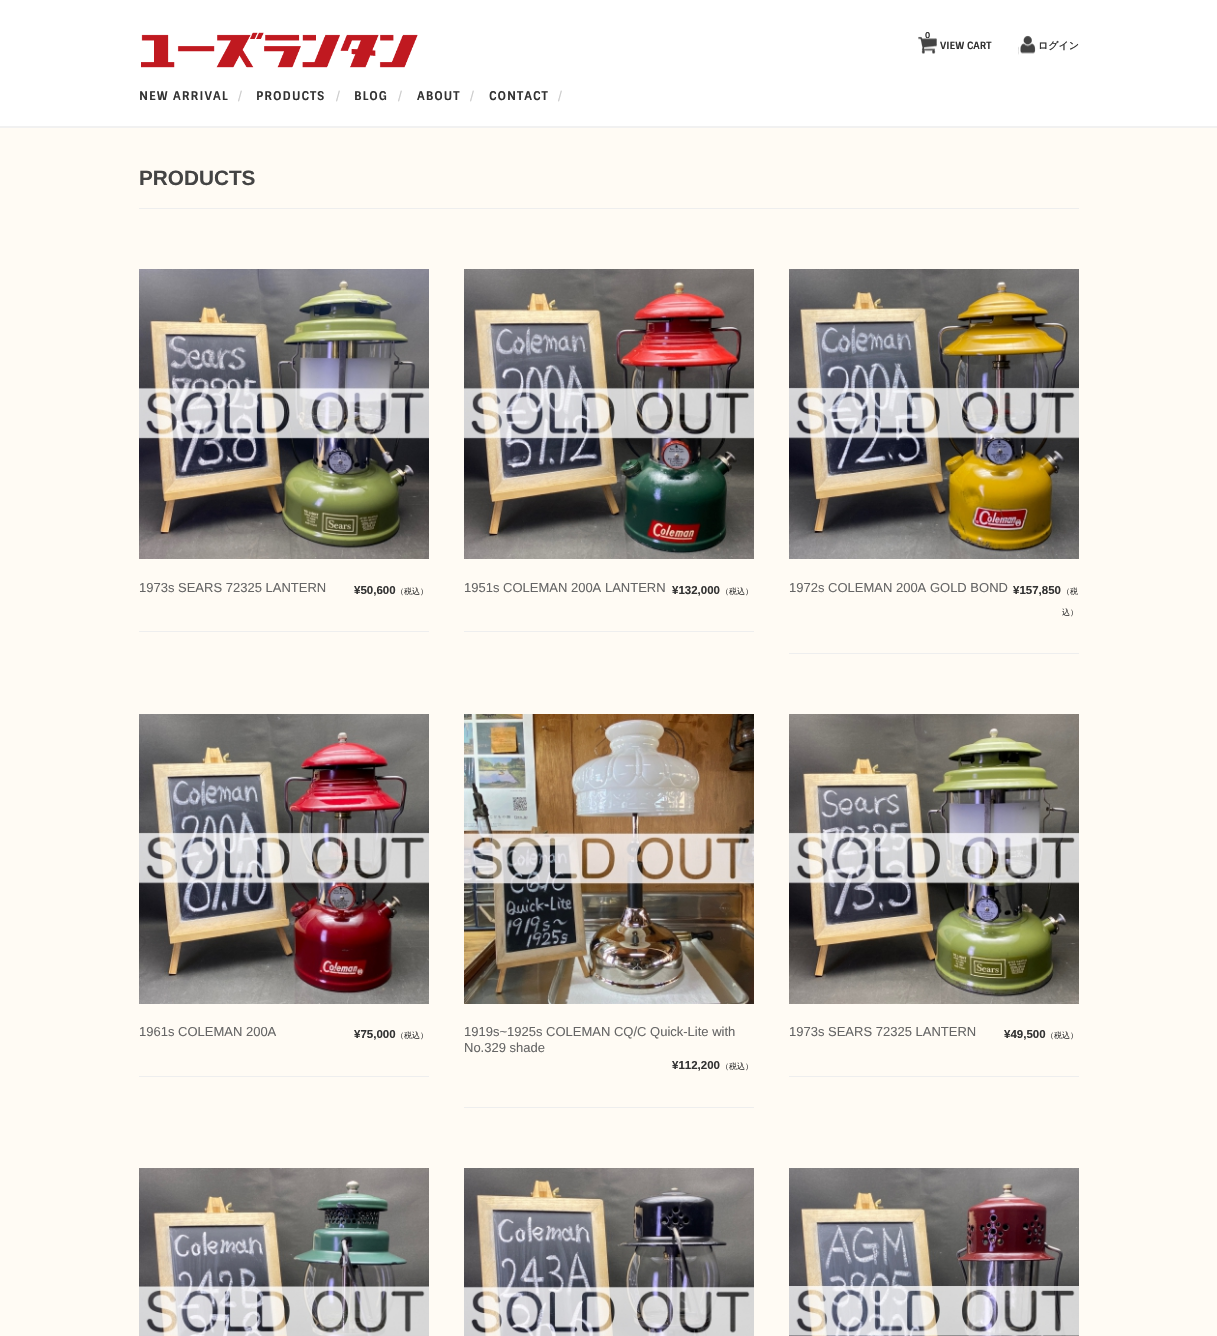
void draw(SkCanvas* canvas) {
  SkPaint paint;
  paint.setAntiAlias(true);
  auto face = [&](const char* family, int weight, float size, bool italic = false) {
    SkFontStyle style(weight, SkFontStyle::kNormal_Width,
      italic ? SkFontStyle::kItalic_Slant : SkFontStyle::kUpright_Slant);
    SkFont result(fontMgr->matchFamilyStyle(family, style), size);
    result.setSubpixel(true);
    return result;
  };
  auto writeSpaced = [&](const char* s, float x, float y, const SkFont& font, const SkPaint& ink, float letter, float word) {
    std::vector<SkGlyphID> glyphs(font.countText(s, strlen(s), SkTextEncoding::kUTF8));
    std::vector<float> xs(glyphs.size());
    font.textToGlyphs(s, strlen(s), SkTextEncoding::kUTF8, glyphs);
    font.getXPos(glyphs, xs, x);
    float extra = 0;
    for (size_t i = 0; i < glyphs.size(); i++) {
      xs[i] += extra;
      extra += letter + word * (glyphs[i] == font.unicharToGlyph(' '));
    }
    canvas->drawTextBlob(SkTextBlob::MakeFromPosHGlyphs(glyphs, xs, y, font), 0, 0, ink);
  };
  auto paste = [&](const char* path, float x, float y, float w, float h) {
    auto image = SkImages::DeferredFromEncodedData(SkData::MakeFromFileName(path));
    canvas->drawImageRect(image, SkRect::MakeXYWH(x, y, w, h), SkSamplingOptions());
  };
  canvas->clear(0xfffffbf4);
  paint.setColor(0xffffffff);
  canvas->drawRect(SkRect::MakeXYWH(0, 0, 1217, 126), paint);
  paint.setColor(0xfff1f1f1);
  canvas->drawRect(SkRect::MakeXYWH(0, 126, 1217, 2), paint);
  paste("img/1.png", 141, 32, 277, 36);
  paste("img/2.png", 918, 36, 19, 18);
  paste("img/3.png", 1018, 35, 18, 20);
  paint.setColor(0xffeeeeee);
  canvas->drawRect(SkRect::MakeXYWH(139, 208, 940, 1), paint);
  canvas->drawRect(SkRect::MakeXYWH(139, 631, 290, 1), paint);
  paste("img/4.png", 139, 269, 290, 290);
  canvas->drawRect(SkRect::MakeXYWH(464, 631, 290, 1), paint);
  paste("img/5.png", 464, 269, 290, 290);
  canvas->drawRect(SkRect::MakeXYWH(789, 653, 290, 1), paint);
  paste("img/6.png", 789, 269, 290, 290);
  canvas->drawRect(SkRect::MakeXYWH(139, 1076, 290, 1), paint);
  paste("img/7.png", 139, 714, 290, 290);
  canvas->drawRect(SkRect::MakeXYWH(464, 1107, 290, 1), paint);
  paste("img/8.png", 464, 714, 290, 290);
  canvas->drawRect(SkRect::MakeXYWH(789, 1076, 290, 1), paint);
  paste("img/9.png", 789, 714, 290, 290);
  paste("img/10.png", 139, 1168, 290, 168);
  paste("img/11.png", 464, 1168, 290, 168);
  paste("img/12.png", 789, 1168, 290, 168);
  auto f0 = face("Sintony", 700, 8);
  paint.setColor(0xff333333);
  canvas->drawString("0", 925, 38, f0, paint);
  auto f1 = face("Sintony", 700, 10);
  canvas->drawString("VIEW CART", 940, 49, f1, paint);
  auto f2 = face("WenQuanYi Zen Hei", 700, 10);
  canvas->drawString("ログイン", 1038, 49, f2, paint);
  auto f3 = face("Sintony", 700, 12);
  writeSpaced("NEW ARRIVAL", 139, 100, f3, paint, 1, 0);
  auto f4 = face("Sintony", 400, 12);
  paint.setColor(0xffcccccc);
  writeSpaced("/", 238, 100, f4, paint, 1, 0);
  paint.setColor(0xff333333);
  writeSpaced("PRODUCTS", 256, 100, f3, paint, 1, 0);
  paint.setColor(0xffcccccc);
  writeSpaced("/", 336, 100, f4, paint, 1, 0);
  paint.setColor(0xff333333);
  writeSpaced("BLOG", 354, 100, f3, paint, 1, 0);
  paint.setColor(0xffcccccc);
  writeSpaced("/", 398, 100, f4, paint, 1, 0);
  paint.setColor(0xff333333);
  writeSpaced("ABOUT", 417, 100, f3, paint, 1, 0);
  paint.setColor(0xffcccccc);
  writeSpaced("/", 470, 100, f4, paint, 1, 0);
  paint.setColor(0xff333333);
  writeSpaced("CONTACT", 489, 100, f3, paint, 1, 0);
  paint.setColor(0xffcccccc);
  writeSpaced("/", 558, 100, f4, paint, 1, 0);
  auto f5 = face("Liberation Sans", 700, 20.75f);
  paint.setColor(0xff444444);
  canvas->drawString("PRODUCTS", 139, 185, f5, paint);
  auto f6 = face("Liberation Sans", 400, 13);
  paint.setColor(0xff666666);
  canvas->drawString("1973s SEARS 72325 LANTERN", 139, 592, f6, paint);
  auto f7 = face("Liberation Sans", 700, 11.5f);
  paint.setColor(0xff333333);
  canvas->drawString("¥50,600", 354, 594, f7, paint);
  auto f8 = face("WenQuanYi Zen Hei", 500, 8);
  canvas->drawString("（税込）", 396, 594, f8, paint);
  paint.setColor(0xff666666);
  canvas->drawString("1951s COLEMAN 200A LANTERN", 464, 592, f6, paint);
  paint.setColor(0xff333333);
  canvas->drawString("¥132,000", 672, 594, f7, paint);
  canvas->drawString("（税込）", 721, 594, f8, paint);
  paint.setColor(0xff666666);
  canvas->drawString("1972s COLEMAN 200A GOLD BOND", 789, 592, f6, paint);
  paint.setColor(0xff333333);
  canvas->drawString("¥157,850", 1013, 594, f7, paint);
  canvas->drawString("（税", 1062, 594, f8, paint);
  canvas->drawString("込）", 1062, 615, f8, paint);
  paint.setColor(0xff666666);
  canvas->drawString("1961s COLEMAN 200A", 139, 1036, f6, paint);
  paint.setColor(0xff333333);
  canvas->drawString("¥75,000", 354, 1038, f7, paint);
  canvas->drawString("（税込）", 396, 1038, f8, paint);
  paint.setColor(0xff666666);
  canvas->drawString("1919s~1925s COLEMAN CQ/C Quick-Lite with", 464, 1036, f6, paint);
  canvas->drawString("No.329 shade", 464, 1052, f6, paint);
  paint.setColor(0xff333333);
  canvas->drawString("¥112,200", 672, 1069, f7, paint);
  canvas->drawString("（税込）", 721, 1069, f8, paint);
  paint.setColor(0xff666666);
  canvas->drawString("1973s SEARS 72325 LANTERN", 789, 1036, f6, paint);
  paint.setColor(0xff333333);
  canvas->drawString("¥49,500", 1004, 1038, f7, paint);
  canvas->drawString("（税込）", 1046, 1038, f8, paint);
}
